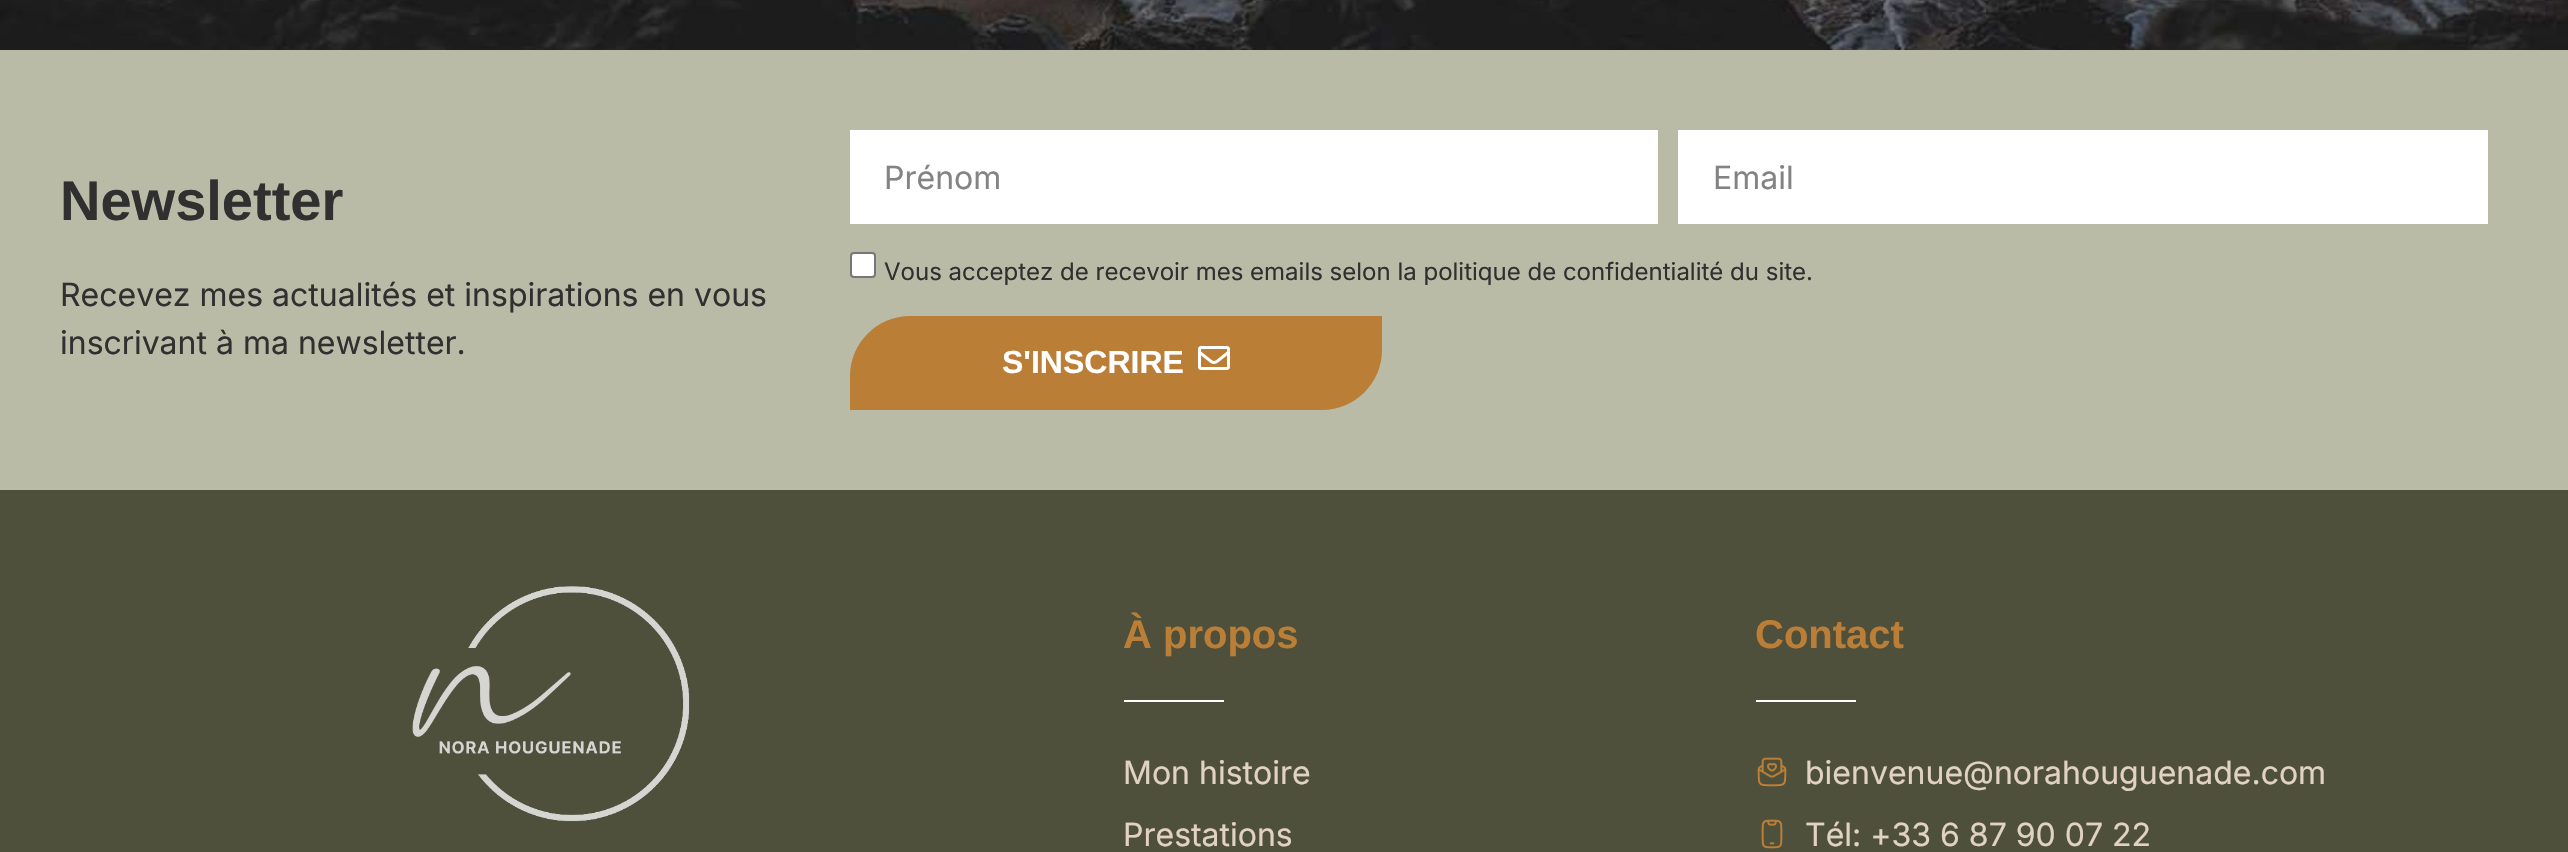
void draw(SkCanvas* canvas) {
  SkPaint paint;
  paint.setAntiAlias(true);
  auto face = [&](const char* family, int weight, float size, bool italic = false) {
    SkFontStyle style(weight, SkFontStyle::kNormal_Width,
      italic ? SkFontStyle::kItalic_Slant : SkFontStyle::kUpright_Slant);
    SkFont result(fontMgr->matchFamilyStyle(family, style), size);
    result.setSubpixel(true);
    return result;
  };
  auto paste = [&](const char* path, float x, float y, float w, float h) {
    auto image = SkImages::DeferredFromEncodedData(SkData::MakeFromFileName(path));
    canvas->drawImageRect(image, SkRect::MakeXYWH(x, y, w, h), SkSamplingOptions());
  };
  auto shape = [&](const char* data, bool evenOdd = false) {
    SkPath result = *SkParsePath::FromSVGString(data);
    if (evenOdd) result.setFillType(SkPathFillType::kEvenOdd);
    return result;
  };
  canvas->clear(0xffffffff);
  paste("img/1.png", 0, 0, 2568, 50);
  {
    const struct { float x, y, w, h; SkColor color; } items[] = {
      {0, 50, 2568, 440, 0xffbabba6},
      {850, 130, 808, 94, 0xffffffff},
      {1678, 130, 810, 94, 0xffffffff},
    };
    for (auto [x, y, w, h, color] : items) {
      paint.setColor(color);
      canvas->drawRect(SkRect::MakeXYWH(x, y, w, h), paint);
    }
  }
  canvas->drawRoundRect(SkRect::MakeXYWH(851, 253, 24, 24), 3, 3, paint);
  paint.setStroke(true);
  paint.setStrokeWidth(2);
  paint.setColor(0xff767676);
  canvas->drawRoundRect(SkRect::MakeXYWH(851, 253, 24, 24), 3, 3, paint);
  paint.setStroke(false);
  paint.setColor(0xffbb7e36);
  canvas->drawPath(shape("M910 316H1382V350C1382 383 1355 410 1322 410H850V376C850 343 877 316 910 316Z"), paint);
  paste("img/2.png", 1198, 346, 32, 24);
  paint.setColor(0xff4e503b);
  canvas->drawRect(SkRect::MakeXYWH(0, 490, 2568, 362), paint);
  paste("img/3.png", 412, 586, 278, 236);
  paint.setColor(0xffffffff);
  canvas->drawRect(SkRect::MakeXYWH(1124, 700, 100, 2), paint);
  canvas->drawRect(SkRect::MakeXYWH(1756, 700, 100, 2), paint);
  paste("img/4.png", 1757, 757, 30, 30);
  paste("img/5.png", 1761, 819, 22, 30);
  auto f0 = face("Liberation Sans", 700, 56);
  paint.setColor(0xff303030);
  canvas->drawString("Newsletter", 60, 220, f0, paint);
  auto f1 = face("Inter", 400, 32);
  canvas->drawString("Recevez mes actualités et inspirations en vous", 60, 306, f1, paint);
  canvas->drawString("inscrivant à ma newsletter.", 60, 354, f1, paint);
  paint.setColor(0xff838383);
  canvas->drawString("Prénom", 884, 189, f1, paint);
  canvas->drawString("Email", 1713, 189, f1, paint);
  auto f2 = face("Inter", 400, 24);
  paint.setColor(0xff303030);
  canvas->drawString("Vous acceptez de recevoir mes emails selon la politique de confidentialité du site.", 884, 280, f2, paint);
  auto f3 = face("Liberation Sans", 700, 32);
  paint.setColor(0xffffffff);
  canvas->drawString("S'INSCRIRE", 1002, 373, f3, paint);
  auto f4 = face("Liberation Sans", 700, 40);
  paint.setColor(0xffbb7e36);
  canvas->drawString("À propos", 1123, 648, f4, paint);
  paint.setColor(0xffe2d2c3);
  canvas->drawString("Mon histoire", 1123, 784, f1, paint);
  canvas->drawString("Prestations", 1123, 846, f1, paint);
  paint.setColor(0xffbb7e36);
  canvas->drawString("Contact", 1755, 648, f4, paint);
  paint.setColor(0xffe2d2c3);
  canvas->drawString("bienvenue@norahouguenade.com", 1805, 784, f1, paint);
  canvas->drawString("Tél: +33 6 87 90 07 22", 1805, 846, f1, paint);
}
